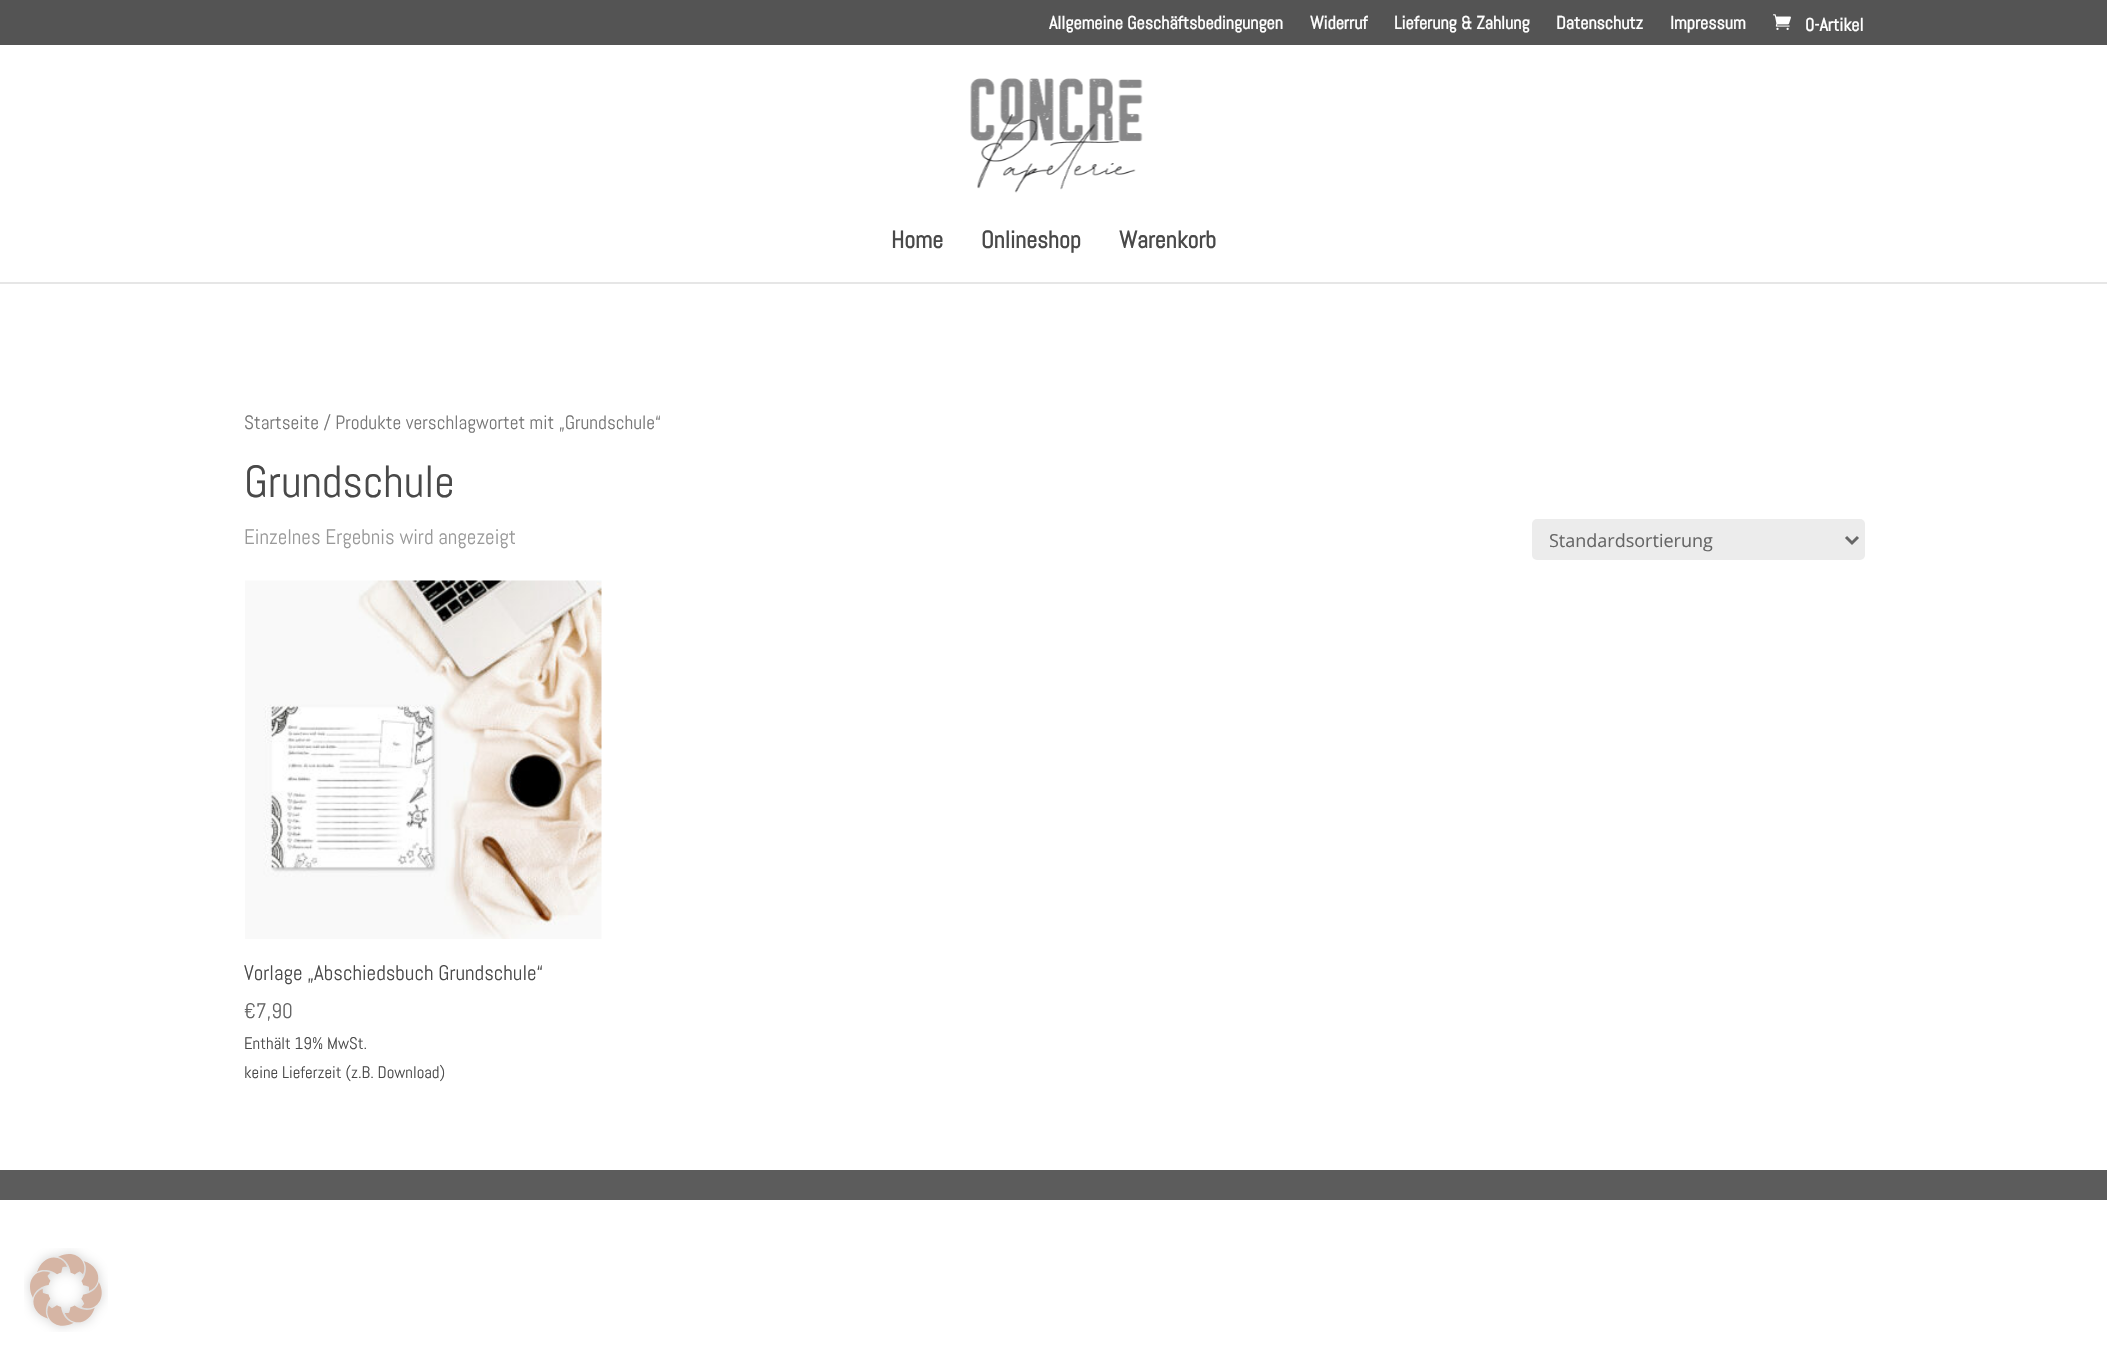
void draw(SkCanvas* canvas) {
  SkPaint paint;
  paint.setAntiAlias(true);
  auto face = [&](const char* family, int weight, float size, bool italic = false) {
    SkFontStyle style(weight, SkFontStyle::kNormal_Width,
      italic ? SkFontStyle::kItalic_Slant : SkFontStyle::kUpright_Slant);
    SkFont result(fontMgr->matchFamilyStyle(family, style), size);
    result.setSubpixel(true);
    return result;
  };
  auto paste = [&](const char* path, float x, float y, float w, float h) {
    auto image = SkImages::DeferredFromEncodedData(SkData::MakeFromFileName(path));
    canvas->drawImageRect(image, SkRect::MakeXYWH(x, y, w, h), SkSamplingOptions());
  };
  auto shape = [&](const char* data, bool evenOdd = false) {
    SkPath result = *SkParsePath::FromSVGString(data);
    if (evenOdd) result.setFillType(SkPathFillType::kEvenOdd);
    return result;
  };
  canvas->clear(0xffffffff);
  paint.setColor(0xff545454);
  canvas->drawRect(SkRect::MakeXYWH(0, 0, 2107, 45), paint);
  paste("img/1.png", 1773, 14, 18, 16);
  paint.setColor(0xffe6e6e6);
  canvas->drawPath(shape("M0 282V284H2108V47V282Z"), paint);
  paste("img/2.png", 970, 78, 173, 115);
  paint.setColor(0xffececec);
  canvas->drawRoundRect(SkRect::MakeXYWH(1532, 519, 333, 41), 5, 5, paint);
  paint.setStroke(true);
  paint.setStrokeWidth(3);
  paint.setColor(0xff666666);
  canvas->drawPath(shape("M1846 537L1852 543L1858 537"), paint);
  paste("img/3.png", 245, 580, 357, 359);
  paint.setStroke(false);
  paint.setColor(0xff5c5c5c);
  canvas->drawRect(SkRect::MakeXYWH(0, 1170, 2107, 30), paint);
  paste("img/4.png", 24, 1248, 84, 84);
  auto f0 = face("Abel", 700, 18);
  paint.setColor(0xffffffff);
  {
    const struct { const char* s; float x, y; } items[] = {
      {"Allgemeine Geschäftsbedingungen", 1049, 29},
      {"Widerruf", 1310, 29},
      {"Lieferung & Zahlung", 1394, 29},
      {"Datenschutz", 1556, 29},
      {"Impressum", 1670, 29},
      {"0-Artikel", 1805, 31},
    };
    for (auto [s, x, y] : items) {
      canvas->drawString(s, x, y, f0, paint);
    }
  }
  auto f1 = face("Abel", 700, 24);
  paint.setColor(0xff494949);
  {
    const struct { const char* s; float x, y; } items[] = {
      {"Home", 891, 248},
      {"Onlineshop", 981, 248},
      {"Warenkorb", 1119, 248},
    };
    for (auto [s, x, y] : items) {
      canvas->drawString(s, x, y, f1, paint);
    }
  }
  auto f2 = face("Abel", 400, 19.3f);
  paint.setColor(0xff767676);
  canvas->drawString("Startseite / Produkte verschlagwortet mit „Grundschule“", 244, 429, f2, paint);
  auto f3 = face("Abel", 400, 45);
  paint.setColor(0xff494949);
  canvas->drawString("Grundschule", 244, 497, f3, paint);
  auto f4 = face("Abel", 400, 21);
  paint.setColor(0xff999999);
  canvas->drawString("Einzelnes Ergebnis wird angezeigt", 244, 544, f4, paint);
  canvas->save();
  canvas->clipRect(SkRect::MakeXYWH(1550, 525, 279, 29));
  auto f5 = face("Open Sans", 400, 18);
  paint.setColor(0xff666666);
  canvas->drawString("Standardsortierung", 1549, 547, f5, paint);
  canvas->restore();
  paint.setColor(0xff494949);
  canvas->drawString("Vorlage „Abschiedsbuch Grundschule“", 244, 980, f4, paint);
  paint.setColor(0xff666666);
  canvas->drawString("€7,90", 244, 1018, f4, paint);
  auto f6 = face("Abel", 400, 16.75f);
  paint.setColor(0xff494949);
  canvas->drawString("Enthält 19% MwSt.", 244, 1049, f6, paint);
  canvas->drawString("keine Lieferzeit (z.B. Download)", 244, 1078, f6, paint);
}
